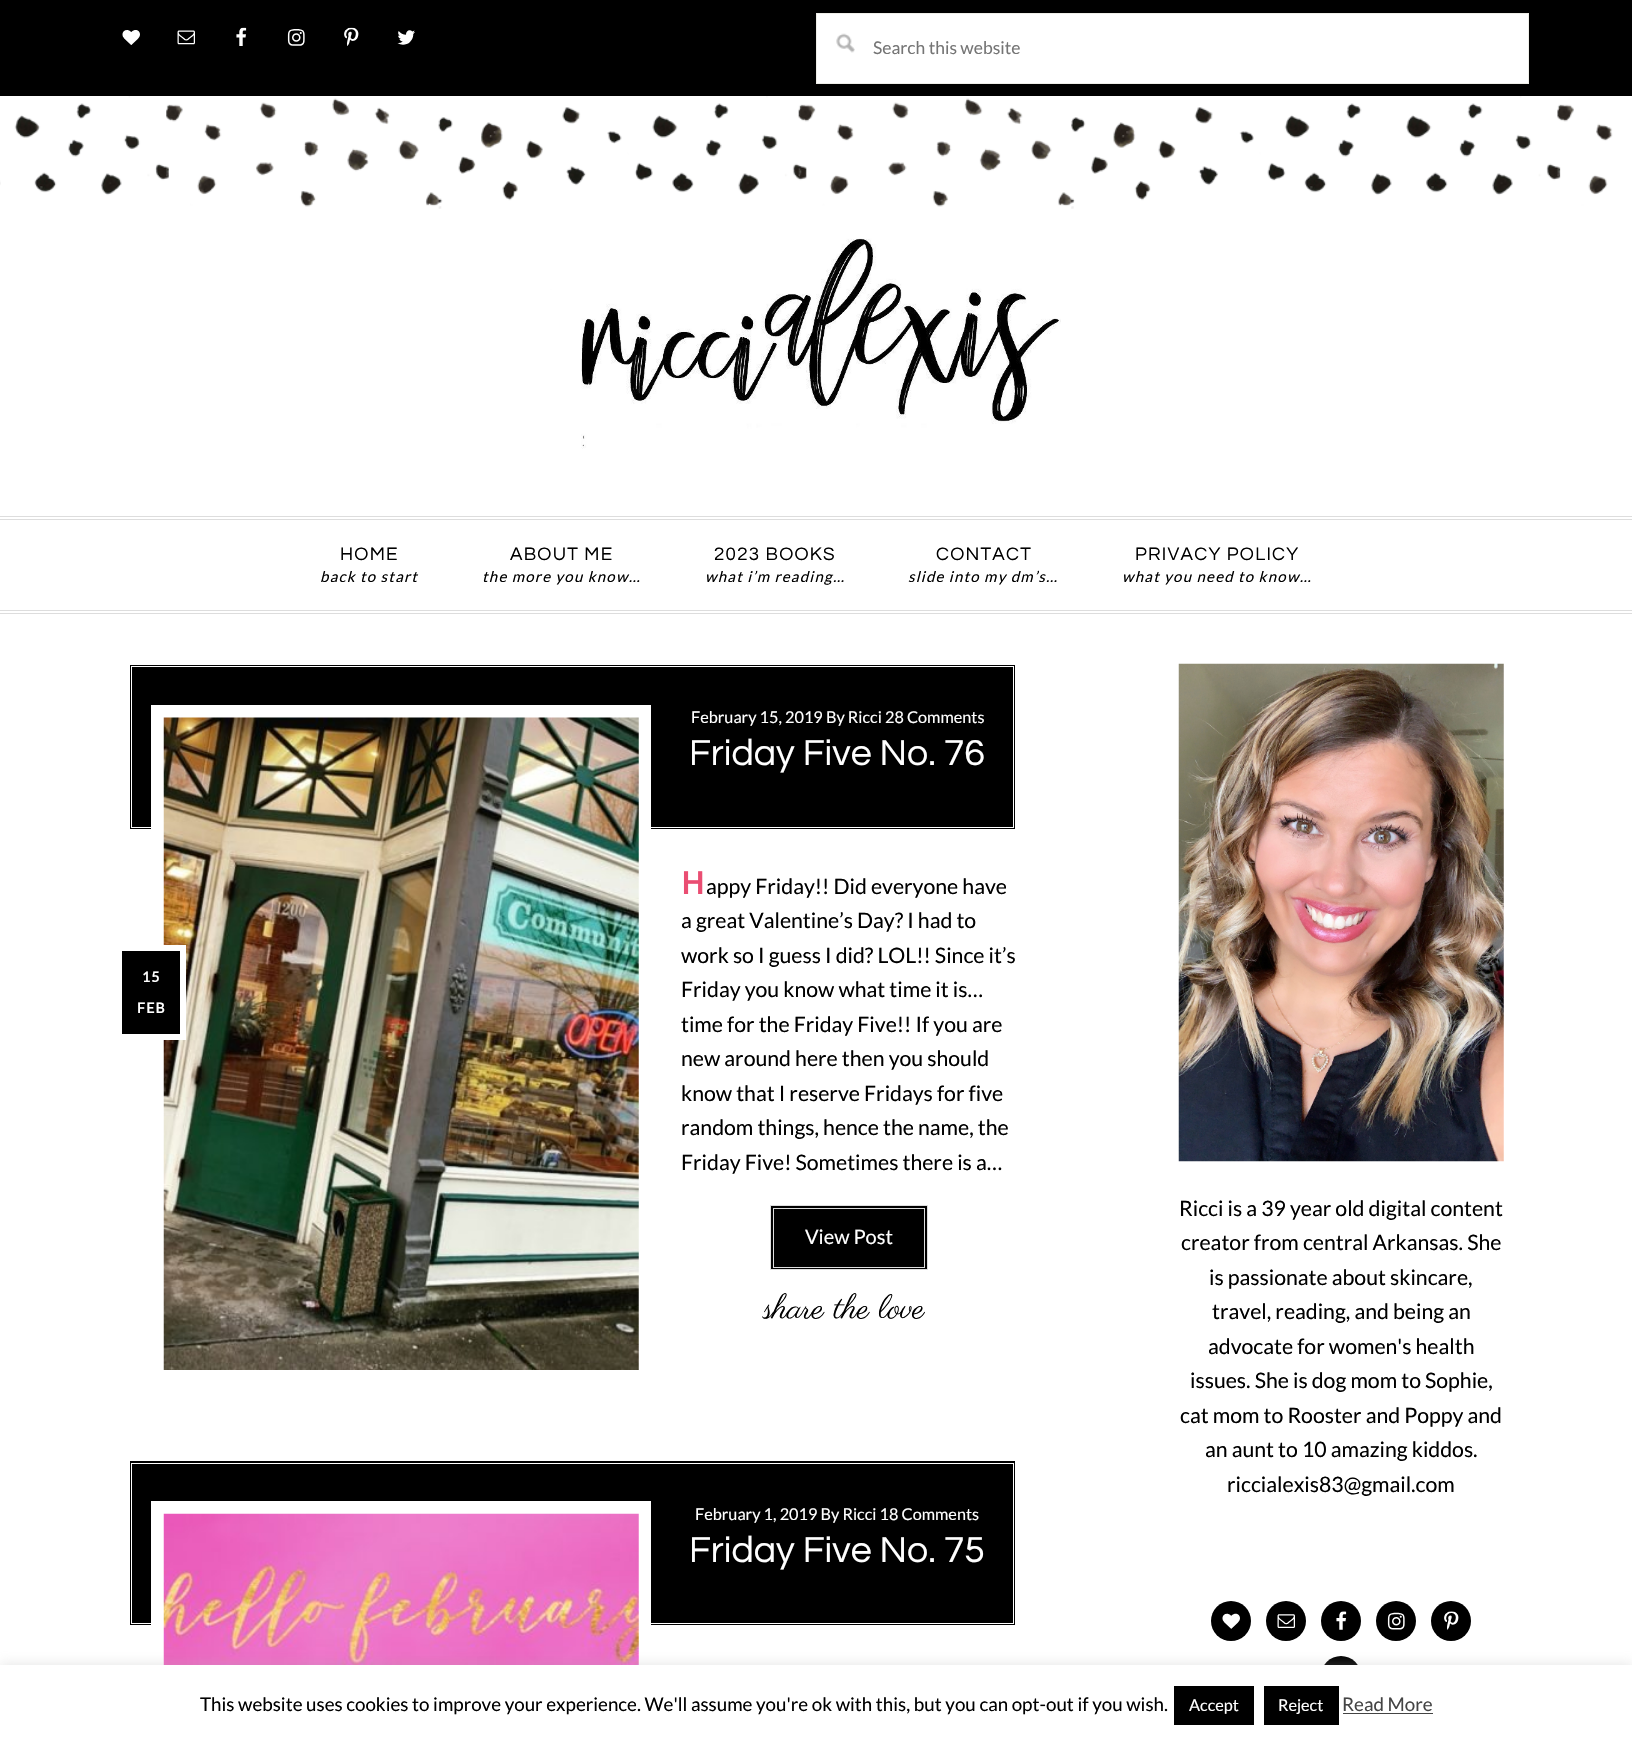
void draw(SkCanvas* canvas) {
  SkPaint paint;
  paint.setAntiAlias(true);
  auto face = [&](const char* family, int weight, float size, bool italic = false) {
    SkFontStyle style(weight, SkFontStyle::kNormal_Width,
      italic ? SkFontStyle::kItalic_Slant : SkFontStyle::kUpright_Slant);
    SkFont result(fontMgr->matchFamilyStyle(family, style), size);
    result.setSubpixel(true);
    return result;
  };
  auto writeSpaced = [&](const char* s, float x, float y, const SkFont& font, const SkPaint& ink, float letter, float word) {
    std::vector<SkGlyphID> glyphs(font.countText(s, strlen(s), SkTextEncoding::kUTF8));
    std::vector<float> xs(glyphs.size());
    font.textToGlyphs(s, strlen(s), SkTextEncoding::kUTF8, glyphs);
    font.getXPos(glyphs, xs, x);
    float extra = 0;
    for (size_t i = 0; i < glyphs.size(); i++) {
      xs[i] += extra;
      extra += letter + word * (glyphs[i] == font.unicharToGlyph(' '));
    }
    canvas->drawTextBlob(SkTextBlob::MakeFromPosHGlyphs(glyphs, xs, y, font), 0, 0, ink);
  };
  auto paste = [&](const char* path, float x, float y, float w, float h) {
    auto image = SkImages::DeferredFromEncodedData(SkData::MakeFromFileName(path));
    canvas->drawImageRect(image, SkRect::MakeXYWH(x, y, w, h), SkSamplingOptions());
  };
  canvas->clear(0xffffffff);
  paint.setColor(0xff000000);
  canvas->drawRect(SkRect::MakeXYWH(0, 0, 1632, 96), paint);
  paste("img/1.png", 122, 30, 18, 15);
  paste("img/2.png", 177, 30, 18, 15);
  paste("img/3.png", 236, 27, 11, 19);
  paste("img/4.png", 287, 29, 18, 17);
  paste("img/5.png", 344, 27, 15, 19);
  paste("img/6.png", 397, 30, 18, 15);
  paint.setColor(0xffffffff);
  canvas->drawRect(SkRect::MakeXYWH(817, 14, 711, 69), paint);
  paste("img/7.png", 836, 33, 19, 20);
  paint.setStroke(true);
  paint.setStrokeWidth(1);
  paint.setColor(0xffeeeee8);
  canvas->drawRect(SkRect::MakeXYWH(816.5f, 13.5f, 712, 70), paint);
  paste("img/8.png", 0, 96, 1613, 195);
  paste("img/9.png", 581, 238, 480, 211);
  paint.setStroke(false);
  {
    const struct { float x, y, w, h; SkColor color; } items[] = {
      {0, 516, 1632, 1, 0xffdddddd},
      {0, 519, 1632, 1, 0xffdddddd},
      {0, 610, 1632, 1, 0xffdddddd},
      {0, 613, 1632, 1, 0xffdddddd},
      {130, 665, 885, 164, 0xff000000},
    };
    for (auto [x, y, w, h, color] : items) {
      paint.setColor(color);
      canvas->drawRect(SkRect::MakeXYWH(x, y, w, h), paint);
    }
  }
  paint.setStroke(true);
  paint.setColor(0xffffffff);
  canvas->drawRect(SkRect::MakeXYWH(131.5f, 666.5f, 882, 161), paint);
  paint.setStrokeWidth(13);
  canvas->drawRect(SkRect::MakeXYWH(157.5f, 711.5f, 487, 665), paint);
  paste("img/10.png", 163, 717, 476, 653);
  paint.setStroke(false);
  paint.setColor(0xff000000);
  canvas->drawRect(SkRect::MakeXYWH(119, 948, 64, 89), paint);
  paint.setStroke(true);
  paint.setStrokeWidth(6);
  paint.setColor(0xffffffff);
  canvas->drawRect(SkRect::MakeXYWH(119, 948, 64, 89), paint);
  paint.setStroke(false);
  paint.setColor(0xff000000);
  canvas->drawRect(SkRect::MakeXYWH(770.5f, 1205.5f, 157, 64), paint);
  paint.setStroke(true);
  paint.setStrokeWidth(1);
  paint.setColor(0xffdddddd);
  canvas->drawRect(SkRect::MakeXYWH(770.5f, 1205.5f, 157, 64), paint);
  canvas->drawRect(SkRect::MakeXYWH(773.5f, 1208.5f, 151, 59), paint);
  paint.setStroke(false);
  paint.setColor(0xff000000);
  canvas->drawRect(SkRect::MakeXYWH(130, 1461, 885, 164), paint);
  paint.setStroke(true);
  paint.setColor(0xffffffff);
  canvas->drawRect(SkRect::MakeXYWH(131.5f, 1463.5f, 882, 160), paint);
  paint.setStrokeWidth(13);
  canvas->drawRect(SkRect::MakeXYWH(157.5f, 1507.5f, 487, 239), paint);
  paste("img/11.png", 163, 1513, 476, 152);
  paste("img/12.png", 1178, 663, 326, 499);
  paint.setStroke(false);
  paint.setColor(0xff000000);
  canvas->drawCircle(1231, 1621, 20, paint);
  paste("img/13.png", 1222, 1613, 18, 16);
  canvas->drawCircle(1286, 1621, 20, paint);
  paste("img/14.png", 1277, 1614, 18, 14);
  canvas->drawCircle(1341, 1621, 20, paint);
  paste("img/15.png", 1336, 1611, 11, 19);
  canvas->drawCircle(1396, 1621, 20, paint);
  paste("img/16.png", 1387, 1612, 18, 18);
  canvas->drawCircle(1451, 1621, 20, paint);
  paste("img/17.png", 1444, 1611, 15, 19);
  canvas->drawCircle(1341, 1676, 20, paint);
  paint.setColor(0x4dacabab);
  paint.setMaskFilter(SkMaskFilter::MakeBlur(kNormal_SkBlurStyle, 6));
  canvas->drawRect(SkRect::MakeXYWH(0, 1664, 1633, 75), paint);
  paint.setMaskFilter(nullptr);
  {
    const struct { float x, y, w, h; SkColor color; } items[] = {
      {0, 1665, 1632, 75, 0xffffffff},
      {1174, 1686, 80, 39, 0xff000000},
      {1264, 1686, 75, 39, 0xff000000},
      {1343, 1713, 90, 1, 0xff444444},
    };
    for (auto [x, y, w, h, color] : items) {
      paint.setColor(color);
      canvas->drawRect(SkRect::MakeXYWH(x, y, w, h), paint);
    }
  }
  auto f0 = face("Lato", 400, 17.5f);
  paint.setColor(0xff757575);
  canvas->drawString("Search this website", 873, 54, f0, paint);
  auto f1 = face("Questrial", 400, 18.75f);
  paint.setColor(0xff000000);
  writeSpaced("HOME", 340, 560, f1, paint, 1.25f, 0);
  auto f2 = face("Lato", 400, 15, true);
  writeSpaced("back to start", 320, 582, f2, paint, 1.25f, 0);
  writeSpaced("ABOUT ME", 510, 560, f1, paint, 1.25f, 0);
  writeSpaced("the more you know…", 482, 582, f2, paint, 1.25f, 0);
  writeSpaced("2023 BOOKS", 714, 560, f1, paint, 1.25f, 0);
  writeSpaced("what i’m reading…", 705, 582, f2, paint, 1.25f, 0);
  writeSpaced("CONTACT", 936, 560, f1, paint, 1.25f, 0);
  writeSpaced("slide into my dm’s…", 908, 582, f2, paint, 1.25f, 0);
  writeSpaced("PRIVACY POLICY", 1135, 560, f1, paint, 1.25f, 0);
  writeSpaced("what you need to know…", 1122, 582, f2, paint, 1.25f, 0);
  auto f3 = face("Lato", 400, 16.25f);
  paint.setColor(0xffffffff);
  canvas->drawString("February 15, 2019 By Ricci 28 Comments", 691, 723, f3, paint);
  auto f4 = face("Questrial", 400, 37.5f);
  canvas->drawString("Friday Five No. 76", 689, 765, f4, paint);
  auto f5 = face("Lato", 700, 14);
  writeSpaced("15", 142, 982, f5, paint, 1.25f, 0);
  writeSpaced("FEB", 137, 1013, f5, paint, 1.25f, 0);
  auto f6 = face("Noto Sans", 600, 32);
  paint.setColor(0xffea4d72);
  canvas->drawString("H", 681, 894, f6, paint);
  auto f7 = face("Lato", 400, 21.25f);
  paint.setColor(0xff000000);
  {
    const struct { const char* s; float x, y; } items[] = {
      {"appy Friday!! Did everyone have", 706, 894},
      {"a great Valentine’s Day? I had to", 681, 928},
      {"work so I guess I did? LOL!! Since it’s", 681, 963},
      {"Friday you know what time it is…", 681, 997},
      {"time for the Friday Five!! If you are", 681, 1032},
      {"new around here then you should", 681, 1066},
      {"know that I reserve Fridays for five", 681, 1101},
      {"random things, hence the name, the", 681, 1135},
      {"Friday Five! Sometimes there is a…", 681, 1170},
    };
    for (auto [s, x, y] : items) {
      canvas->drawString(s, x, y, f7, paint);
    }
  }
  auto f8 = face("Lato", 400, 20);
  paint.setColor(0xffffffff);
  canvas->drawString("View Post", 805, 1244, f8, paint);
  auto f9 = face("Parisienne", 400, 33.75f);
  paint.setColor(0xff000000);
  canvas->drawString("share the love", 764, 1318, f9, paint);
  paint.setColor(0xffffffff);
  canvas->drawString("February 1, 2019 By Ricci 18 Comments", 695, 1520, f3, paint);
  canvas->drawString("Friday Five No. 75", 689, 1562, f4, paint);
  paint.setColor(0xff000000);
  {
    const struct { const char* s; float x, y; } items[] = {
      {"Ricci is a 39 year old digital content", 1179, 1216},
      {"creator from central Arkansas. She", 1181, 1250},
      {"is passionate about skincare,", 1209, 1285},
      {"travel, reading, and being an", 1212, 1319},
      {"advocate for women's health", 1208, 1354},
      {"issues. She is dog mom to Sophie,", 1190, 1388},
      {"cat mom to Rooster and Poppy and", 1180, 1423},
      {"an aunt to 10 amazing kiddos.", 1205, 1457},
      {"riccialexis83@gmail.com", 1227, 1492},
    };
    for (auto [s, x, y] : items) {
      canvas->drawString(s, x, y, f7, paint);
    }
  }
  auto f10 = face("Lato", 400, 18.75f);
  canvas->drawString("This website uses cookies to improve your experience. We'll assume you're ok with this, but you can opt-out if you wish.", 200, 1711, f10, paint);
  paint.setColor(0xffffffff);
  canvas->drawString("Accept", 1189, 1711, f3, paint);
  canvas->drawString("Reject", 1278, 1711, f3, paint);
  paint.setColor(0xff444444);
  canvas->drawString("Read More", 1342, 1711, f10, paint);
}
